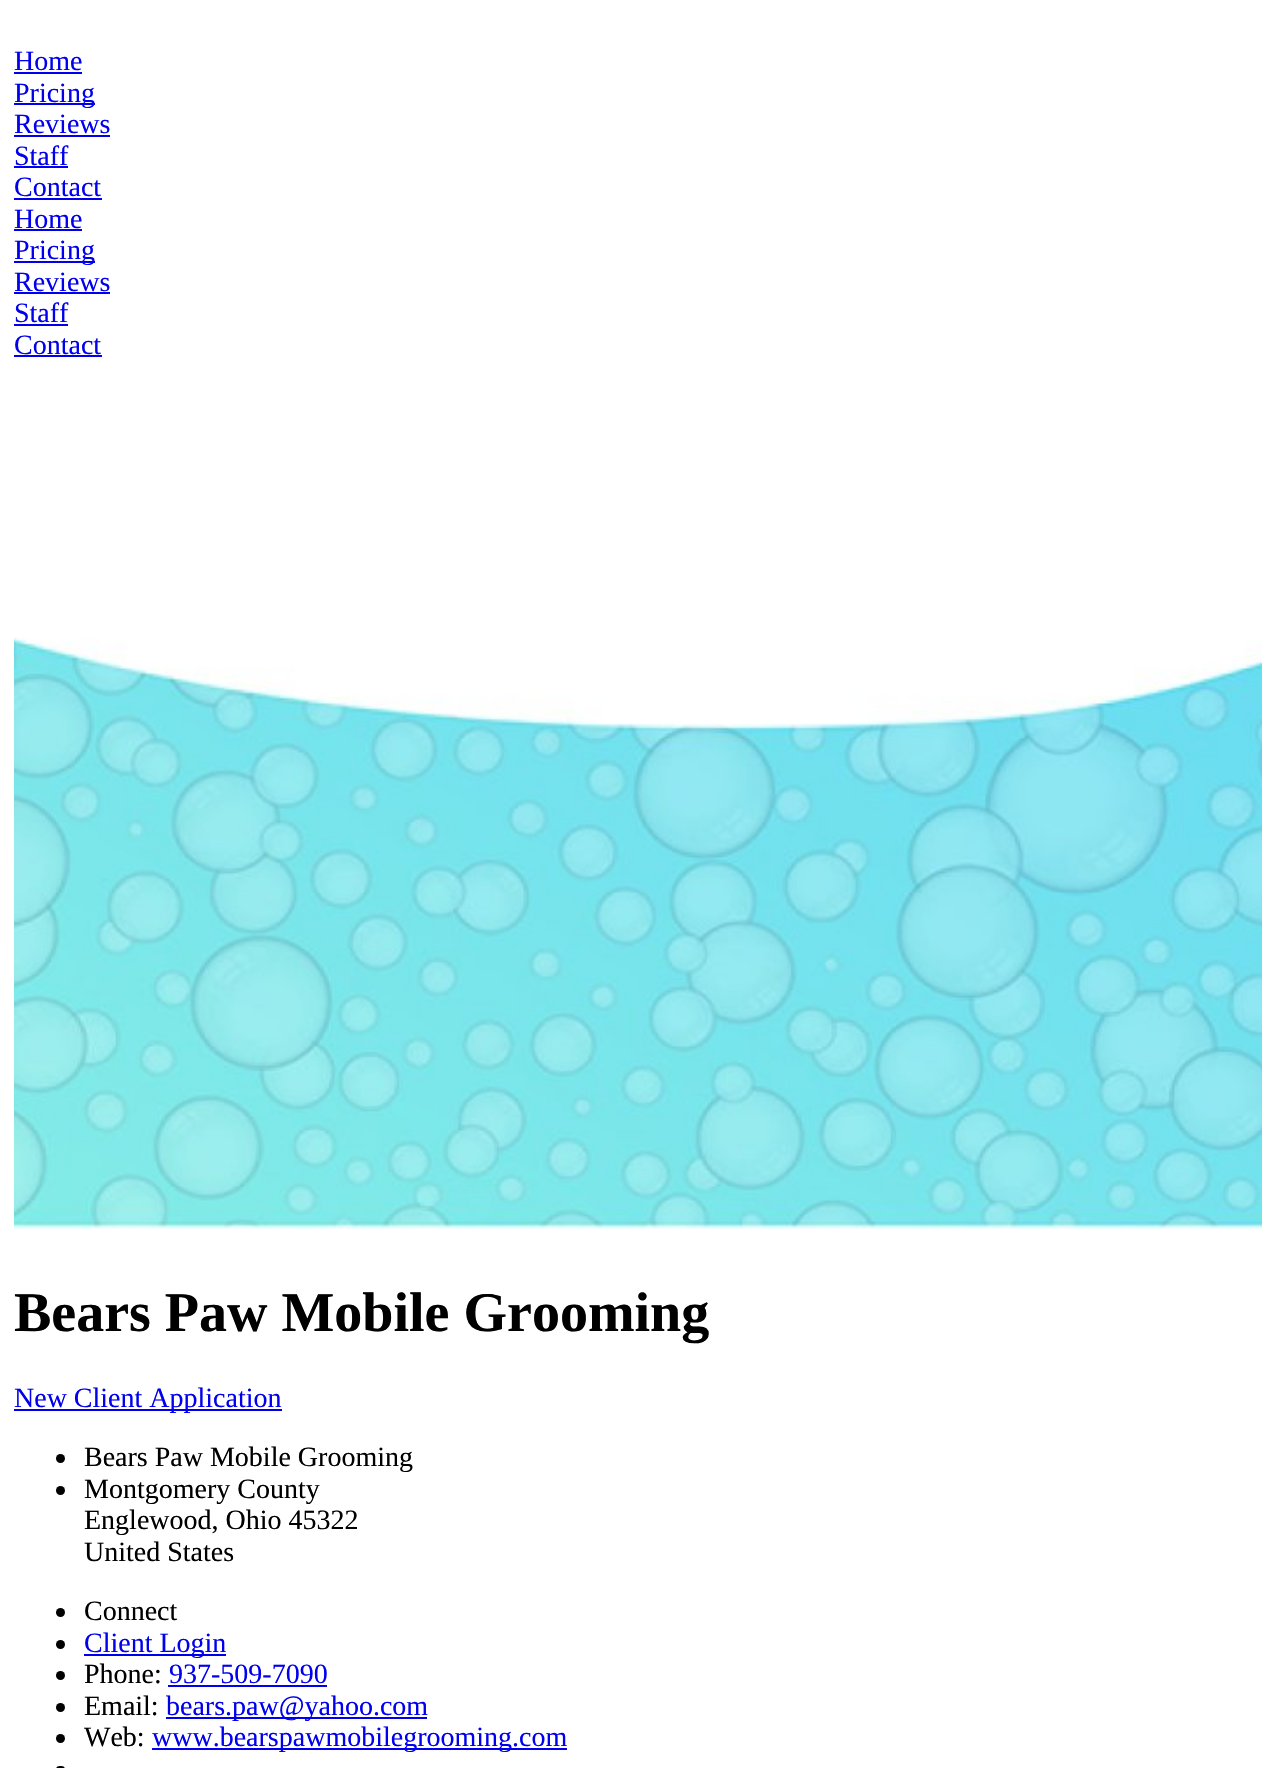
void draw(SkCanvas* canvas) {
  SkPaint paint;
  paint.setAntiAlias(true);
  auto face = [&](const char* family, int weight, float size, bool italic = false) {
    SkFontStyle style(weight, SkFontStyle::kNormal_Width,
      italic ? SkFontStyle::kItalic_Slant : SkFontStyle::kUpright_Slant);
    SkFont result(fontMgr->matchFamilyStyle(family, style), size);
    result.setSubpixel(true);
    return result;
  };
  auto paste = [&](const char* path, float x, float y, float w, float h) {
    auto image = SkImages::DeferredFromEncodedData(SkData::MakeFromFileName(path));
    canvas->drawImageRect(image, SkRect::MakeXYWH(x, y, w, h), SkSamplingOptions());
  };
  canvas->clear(0xffffffff);
  {
    const struct { float x, y, w, h; SkColor color; } items[] = {
      {14, 72, 68, 2, 0xff0000ee},
      {14, 103, 81, 2, 0xff0000ee},
      {14, 135, 96, 2, 0xff0000ee},
      {14, 166, 54, 2, 0xff0000ee},
      {14, 198, 88, 2, 0xff0000ee},
      {14, 229, 68, 2, 0xff0000ee},
      {14, 261, 81, 2, 0xff0000ee},
      {14, 292, 96, 2, 0xff0000ee},
      {14, 324, 54, 2, 0xff0000ee},
      {14, 355, 88, 2, 0xff0000ee},
    };
    for (auto [x, y, w, h, color] : items) {
      paint.setColor(color);
      canvas->drawRect(SkRect::MakeXYWH(x, y, w, h), paint);
    }
  }
  paste("img/1.png", 14, 637, 1248, 593);
  canvas->drawRect(SkRect::MakeXYWH(14, 1409, 268, 2), paint);
  paint.setColor(0xff000000);
  canvas->drawCircle(60.5f, 1458.5f, 4.5f, paint);
  canvas->drawCircle(60.5f, 1490.5f, 4.5f, paint);
  canvas->drawCircle(60.5f, 1612.5f, 4.5f, paint);
  canvas->drawCircle(60.5f, 1644.5f, 4.5f, paint);
  paint.setColor(0xff0000ee);
  canvas->drawRect(SkRect::MakeXYWH(84, 1654, 142, 2), paint);
  paint.setColor(0xff000000);
  canvas->drawCircle(60.5f, 1675.5f, 4.5f, paint);
  paint.setColor(0xff0000ee);
  canvas->drawRect(SkRect::MakeXYWH(168, 1685, 159, 2), paint);
  paint.setColor(0xff000000);
  canvas->drawCircle(60.5f, 1707.5f, 4.5f, paint);
  paint.setColor(0xff0000ee);
  canvas->drawRect(SkRect::MakeXYWH(166, 1717, 261, 2), paint);
  paint.setColor(0xff000000);
  canvas->drawCircle(60.5f, 1738.5f, 4.5f, paint);
  paint.setColor(0xff0000ee);
  canvas->drawRect(SkRect::MakeXYWH(152, 1748, 415, 2), paint);
  paint.setColor(0xff000000);
  canvas->drawRoundRect(SkRect::MakeXYWH(56, 1766, 9, 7), 4.5f, 4.5f, paint);
  auto f0 = face("Liberation Serif", 400, 28);
  paint.setColor(0xff0000ee);
  {
    const struct { const char* s; float x, y; } items[] = {
      {"Home", 14, 70},
      {"Pricing", 14, 102},
      {"Reviews", 14, 133},
      {"Staff", 14, 165},
      {"Contact", 14, 196},
      {"Home", 14, 228},
      {"Pricing", 14, 259},
      {"Reviews", 14, 291},
      {"Staff", 14, 322},
      {"Contact", 14, 354},
    };
    for (auto [s, x, y] : items) {
      canvas->drawString(s, x, y, f0, paint);
    }
  }
  auto f1 = face("Liberation Serif", 700, 56);
  paint.setColor(0xff000000);
  canvas->drawString("Bears Paw Mobile Grooming", 14, 1331, f1, paint);
  paint.setColor(0xff0000ee);
  canvas->drawString("New Client Application", 14, 1407, f0, paint);
  paint.setColor(0xff000000);
  {
    const struct { const char* s; float x, y; } items[] = {
      {"Bears Paw Mobile Grooming", 84, 1466},
      {"Montgomery County", 84, 1498},
      {"Englewood, Ohio 45322", 84, 1529},
      {"United States", 84, 1561},
      {"Connect", 84, 1620},
    };
    for (auto [s, x, y] : items) {
      canvas->drawString(s, x, y, f0, paint);
    }
  }
  paint.setColor(0xff0000ee);
  canvas->drawString("Client Login", 84, 1652, f0, paint);
  paint.setColor(0xff000000);
  canvas->drawString("Phone:", 84, 1683, f0, paint);
  paint.setColor(0xff0000ee);
  canvas->drawString("937-509-7090", 169, 1683, f0, paint);
  paint.setColor(0xff000000);
  canvas->drawString("Email:", 84, 1715, f0, paint);
  paint.setColor(0xff0000ee);
  canvas->drawString("bears.paw@yahoo.com", 166, 1715, f0, paint);
  paint.setColor(0xff000000);
  canvas->drawString("Web:", 84, 1746, f0, paint);
  paint.setColor(0xff0000ee);
  canvas->drawString("www.bearspawmobilegrooming.com", 152, 1746, f0, paint);
}
